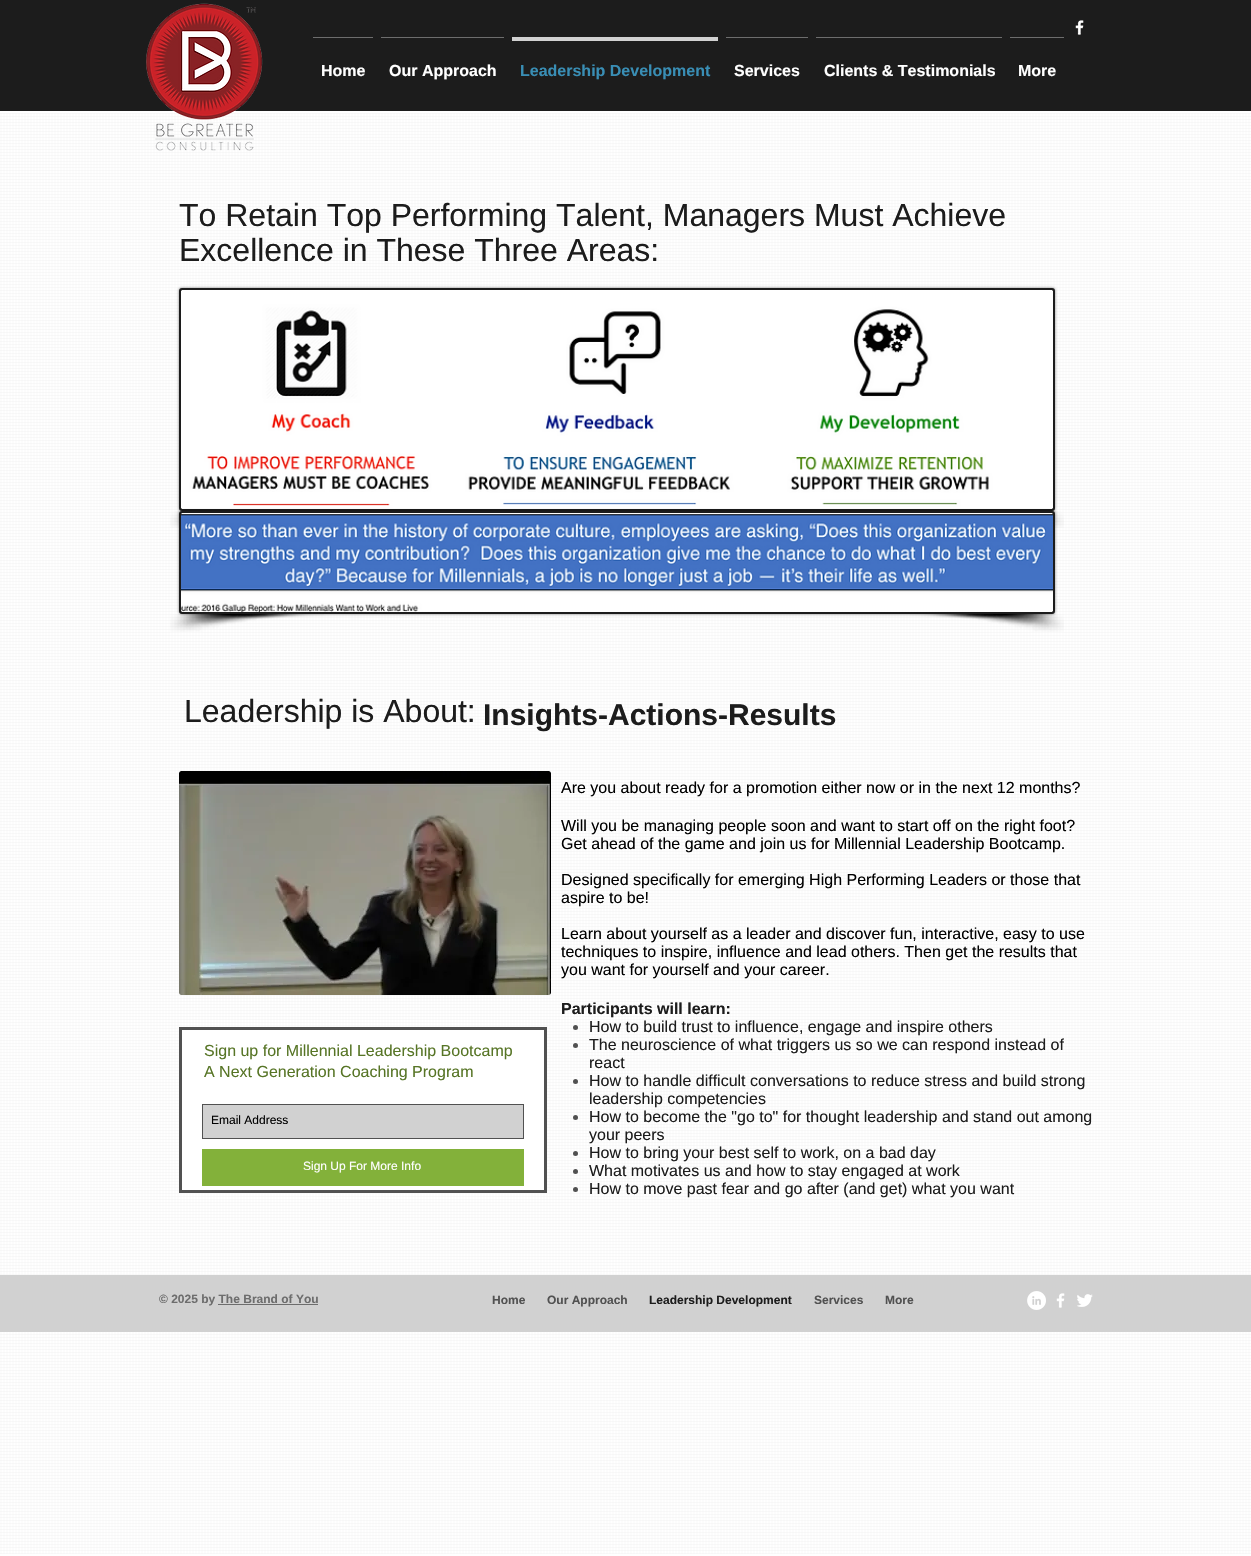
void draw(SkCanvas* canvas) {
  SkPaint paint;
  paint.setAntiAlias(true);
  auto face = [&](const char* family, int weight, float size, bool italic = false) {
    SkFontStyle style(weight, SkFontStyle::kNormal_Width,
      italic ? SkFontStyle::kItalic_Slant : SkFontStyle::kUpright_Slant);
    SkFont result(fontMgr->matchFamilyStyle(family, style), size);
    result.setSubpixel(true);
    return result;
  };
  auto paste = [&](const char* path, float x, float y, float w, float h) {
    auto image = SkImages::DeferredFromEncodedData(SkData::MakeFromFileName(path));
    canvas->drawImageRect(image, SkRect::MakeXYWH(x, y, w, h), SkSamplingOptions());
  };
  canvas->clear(0xffffffff);
  paint.setColor(0xff1c1c1c);
  canvas->drawRect(SkRect::MakeXYWH(0, 0, 1251, 111), paint);
  paste("img/13.png", 0, 113, 1251, 1441);
  paste("img/1.png", 146, 3, 117, 148);
  paste("img/2.png", 1075, 20, 9, 15);
  {
    const struct { float x, y, w, h; SkColor color; } items[] = {
      {313, 37, 60, 1, 0xff6d6d6d},
      {381, 37, 123, 1, 0xff6d6d6d},
      {512, 37, 206, 4, 0xffd1d1d1},
      {726, 37, 82, 1, 0xff6d6d6d},
      {816, 37, 186, 1, 0xff6d6d6d},
      {1010, 37, 54, 1, 0xff6d6d6d},
    };
    for (auto [x, y, w, h, color] : items) {
      paint.setColor(color);
      canvas->drawRect(SkRect::MakeXYWH(x, y, w, h), paint);
    }
  }
  paint.setColor(0x80000000);
  paint.setMaskFilter(SkMaskFilter::MakeBlur(kNormal_SkBlurStyle, 1.5f));
  canvas->drawRoundRect(SkRect::MakeXYWH(179, 288, 876, 223), 3, 3, paint);
  paint.setMaskFilter(nullptr);
  paint.setColor(0xff1c1c1c);
  canvas->drawRoundRect(SkRect::MakeXYWH(180, 289, 874, 221), 2, 2, paint);
  paint.setStroke(true);
  paint.setStrokeWidth(2);
  canvas->drawRoundRect(SkRect::MakeXYWH(180, 289, 874, 221), 2, 2, paint);
  paste("img/3.png", 181, 290, 872, 219);
  paste("img/4.png", 170, 511, 12, 17);
  paste("img/5.png", 1052, 511, 12, 17);
  paint.setStroke(false);
  paint.setColor(0x80000000);
  paint.setMaskFilter(SkMaskFilter::MakeBlur(kNormal_SkBlurStyle, 1.5f));
  canvas->drawRoundRect(SkRect::MakeXYWH(179, 511, 876, 103), 3, 3, paint);
  paint.setMaskFilter(nullptr);
  paint.setColor(0xff1c1c1c);
  canvas->drawRoundRect(SkRect::MakeXYWH(180, 512, 874, 101), 2, 2, paint);
  paint.setStroke(true);
  canvas->drawRoundRect(SkRect::MakeXYWH(180, 512, 874, 101), 2, 2, paint);
  paste("img/6.png", 181, 513, 872, 99);
  paste("img/7.png", 170, 614, 154, 18);
  paste("img/8.png", 910, 614, 154, 18);
  paste("img/9.png", 179, 771, 372, 224);
  paint.setStroke(false);
  paint.setColor(0xff515151);
  canvas->drawCircle(575.5f, 1027.5f, 2.5f, paint);
  canvas->drawCircle(575.5f, 1045.5f, 2.5f, paint);
  canvas->drawCircle(575.5f, 1081.5f, 2.5f, paint);
  canvas->drawCircle(575.5f, 1117.5f, 2.5f, paint);
  canvas->drawCircle(575.5f, 1153.5f, 2.5f, paint);
  canvas->drawCircle(575.5f, 1171.5f, 2.5f, paint);
  canvas->drawCircle(575.5f, 1189.5f, 2.5f, paint);
  paint.setColor(0xffffffff);
  canvas->drawRect(SkRect::MakeXYWH(180.5f, 1028.5f, 365, 163), paint);
  paint.setStroke(true);
  paint.setStrokeWidth(3);
  paint.setColor(0xff515151);
  canvas->drawRect(SkRect::MakeXYWH(180.5f, 1028.5f, 365, 163), paint);
  paint.setStroke(false);
  paint.setColor(0xffd1d1d1);
  canvas->drawRect(SkRect::MakeXYWH(202.5f, 1104.5f, 321, 34), paint);
  paint.setStroke(true);
  paint.setStrokeWidth(1);
  paint.setColor(0xff515151);
  canvas->drawRect(SkRect::MakeXYWH(202.5f, 1104.5f, 321, 34), paint);
  paint.setStroke(false);
  {
    const struct { float x, y, w, h; SkColor color; } items[] = {
      {202, 1149, 322, 37, 0xff83b13a},
      {0, 1275, 1251, 57, 0xffd1d1d1},
      {218, 1304, 100, 1, 0xff6d6d6d},
    };
    for (auto [x, y, w, h, color] : items) {
      paint.setColor(color);
      canvas->drawRect(SkRect::MakeXYWH(x, y, w, h), paint);
    }
  }
  paste("img/10.png", 1027, 1291, 19, 19);
  paste("img/11.png", 1056, 1293, 9, 15);
  paste("img/12.png", 1077, 1294, 16, 13);
  auto f0 = face("Liberation Sans", 700, 16);
  paint.setColor(0xffffffff);
  canvas->drawString("Home", 321, 76, f0, paint);
  canvas->drawString("Our Approach", 389, 76, f0, paint);
  paint.setColor(0xff398eb5);
  canvas->drawString("Leadership Development", 520, 76, f0, paint);
  paint.setColor(0xffffffff);
  {
    const struct { const char* s; float x, y; } items[] = {
      {"Services", 734, 76},
      {"Clients & Testimonials", 824, 76},
      {"More", 1018, 76},
    };
    for (auto [s, x, y] : items) {
      canvas->drawString(s, x, y, f0, paint);
    }
  }
  auto f1 = face("Liberation Sans", 400, 32);
  paint.setColor(0xff1c1c1c);
  {
    const struct { const char* s; float x, y; } items[] = {
      {"To Retain Top Performing Talent, Managers Must Achieve", 179, 226},
      {"Excellence in These Three Areas:", 179, 261},
      {"Leadership is About:", 184, 722},
    };
    for (auto [s, x, y] : items) {
      canvas->drawString(s, x, y, f1, paint);
    }
  }
  auto f2 = face("Liberation Sans", 700, 30);
  canvas->drawString("Insights-Actions-Results", 483, 725, f2, paint);
  auto f3 = face("Liberation Sans", 400, 16);
  paint.setColor(0xff000000);
  {
    const struct { const char* s; float x, y; } items[] = {
      {"Are you about ready for a promotion either now or in the next 12 months?", 561, 793},
      {"Will you be managing people soon and want to start off on the right foot?", 561, 831},
      {"Get ahead of the game and join us for Millennial Leadership Bootcamp.", 561, 849},
      {"Designed specifically for emerging High Performing Leaders or those that", 561, 885},
      {"aspire to be!", 561, 903},
      {"Learn about yourself as a leader and discover fun, interactive, easy to use", 561, 939},
      {"techniques to inspire, influence and lead others. Then get the results that", 561, 957},
      {"you want for yourself and your career.", 561, 975},
    };
    for (auto [s, x, y] : items) {
      canvas->drawString(s, x, y, f3, paint);
    }
  }
  paint.setColor(0xff1c1c1c);
  canvas->drawString("Participants will learn:", 561, 1014, f0, paint);
  {
    const struct { const char* s; float x, y; } items[] = {
      {"How to build trust to influence, engage and inspire others", 589, 1032},
      {"The neuroscience of what triggers us so we can respond instead of", 589, 1050},
      {"react", 589, 1068},
      {"How to handle difficult conversations to reduce stress and build strong", 589, 1086},
      {"leadership competencies", 589, 1104},
      {"How to become the \"go to\" for thought leadership and stand out among", 589, 1122},
      {"your peers", 589, 1140},
      {"How to bring your best self to work, on a bad day", 589, 1158},
      {"What motivates us and how to stay engaged at work", 589, 1176},
      {"How to move past fear and go after (and get) what you want", 589, 1194},
    };
    for (auto [s, x, y] : items) {
      canvas->drawString(s, x, y, f3, paint);
    }
  }
  paint.setColor(0xff577526);
  canvas->drawString("Sign up for Millennial Leadership Bootcamp", 204, 1056, f3, paint);
  canvas->drawString("A Next Generation Coaching Program", 204, 1077, f3, paint);
  auto f4 = face("Liberation Sans", 400, 12);
  paint.setColor(0xff000000);
  canvas->drawString("Email Address", 211, 1124, f4, paint);
  paint.setColor(0xffffffff);
  canvas->drawString("Sign Up For More Info", 303, 1170, f4, paint);
  auto f5 = face("Liberation Sans", 700, 12);
  paint.setColor(0xff6d6d6d);
  canvas->drawString("© 2025 by The Brand of You", 159, 1303, f5, paint);
  paint.setColor(0xff515151);
  canvas->drawString("Home", 492, 1304, f5, paint);
  canvas->drawString("Our Approach", 547, 1304, f5, paint);
  paint.setColor(0xff1c1c1c);
  canvas->drawString("Leadership Development", 649, 1304, f5, paint);
  paint.setColor(0xff515151);
  canvas->drawString("Services", 814, 1304, f5, paint);
  canvas->drawString("More", 885, 1304, f5, paint);
}
